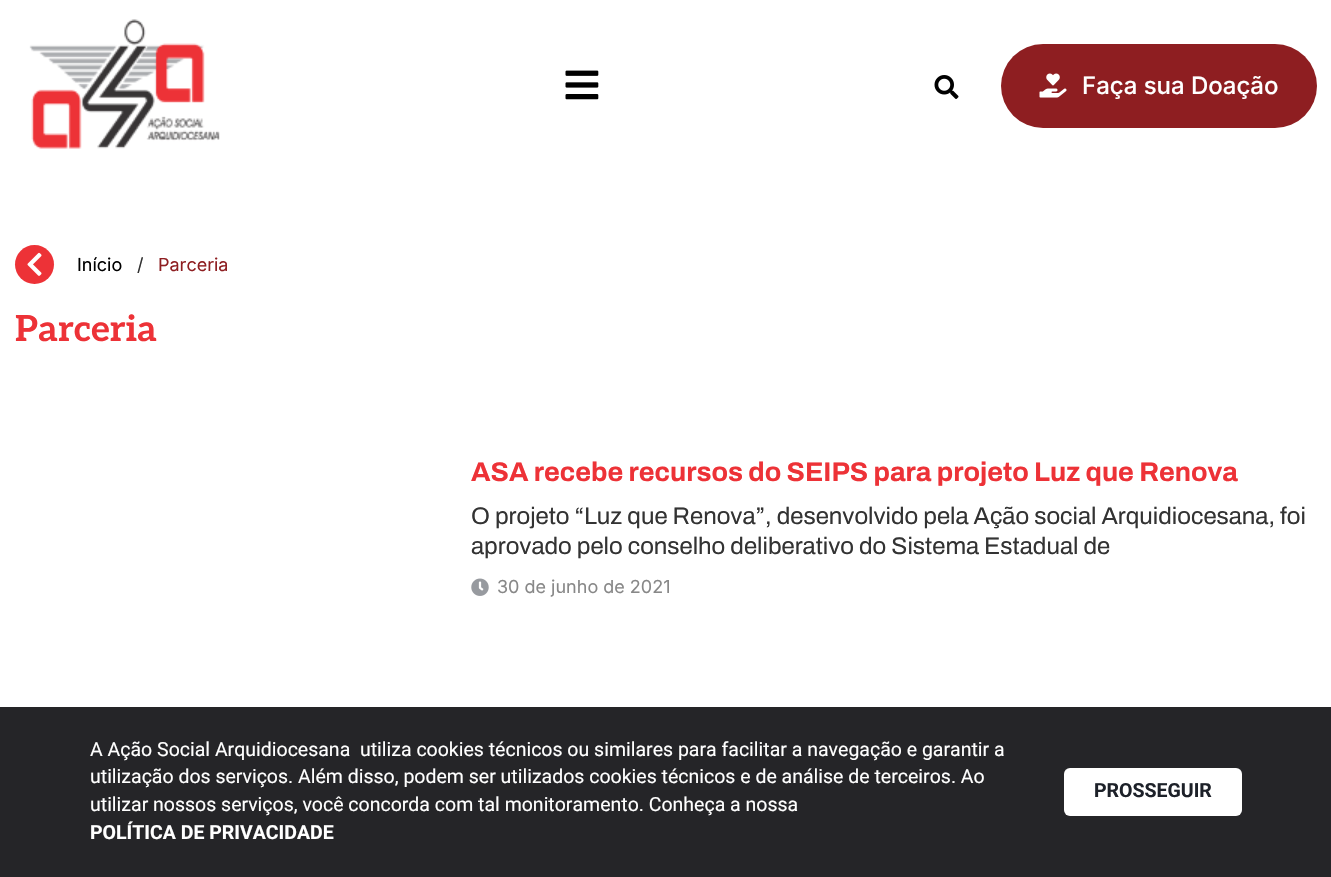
void draw(SkCanvas* canvas) {
  SkPaint paint;
  paint.setAntiAlias(true);
  auto face = [&](const char* family, int weight, float size, bool italic = false) {
    SkFontStyle style(weight, SkFontStyle::kNormal_Width,
      italic ? SkFontStyle::kItalic_Slant : SkFontStyle::kUpright_Slant);
    SkFont result(fontMgr->matchFamilyStyle(family, style), size);
    result.setSubpixel(true);
    return result;
  };
  auto paste = [&](const char* path, float x, float y, float w, float h) {
    auto image = SkImages::DeferredFromEncodedData(SkData::MakeFromFileName(path));
    canvas->drawImageRect(image, SkRect::MakeXYWH(x, y, w, h), SkSamplingOptions());
  };
  canvas->clear(0xffffffff);
  paste("img/1.png", 29, 19, 191, 130);
  paste("img/2.png", 565, 70, 34, 30);
  paste("img/3.png", 934, 75, 25, 24);
  paint.setColor(0xff8e1e21);
  canvas->drawRoundRect(SkRect::MakeXYWH(1001, 44, 316, 84), 42, 42, paint);
  paste("img/4.png", 1039, 73, 28, 25);
  paint.setColor(0xffed3237);
  canvas->drawCircle(34.5f, 264.5f, 19.5f, paint);
  paste("img/5.png", 27, 252, 15, 24);
  paste("img/6.png", 471, 578, 18, 18);
  paint.setColor(0xff252528);
  canvas->drawRect(SkRect::MakeXYWH(0, 707, 1331, 170), paint);
  paint.setColor(0xffffffff);
  canvas->drawRoundRect(SkRect::MakeXYWH(1064, 768, 178, 48), 6, 6, paint);
  auto f0 = face("Inter", 500, 24);
  canvas->drawString("Faça sua Doação", 1082, 94, f0, paint);
  auto f1 = face("Inter", 400, 18);
  paint.setColor(0xff000000);
  canvas->drawString("Início", 77, 271, f1, paint);
  paint.setColor(0xff333333);
  canvas->drawString("/", 137, 271, f1, paint);
  paint.setColor(0xff8e1e21);
  canvas->drawString("Parceria", 158, 271, f1, paint);
  auto f2 = face("Aleo", 700, 36);
  paint.setColor(0xffed3237);
  canvas->drawString("Parceria", 15, 341, f2, paint);
  auto f3 = face("Archivo", 700, 27);
  canvas->drawString("ASA recebe recursos do SEIPS para projeto Luz que Renova", 471, 481, f3, paint);
  auto f4 = face("Archivo", 400, 24);
  paint.setColor(0xff333333);
  canvas->drawString("O projeto “Luz que Renova”, desenvolvido pela Ação social Arquidiocesana, foi", 471, 524, f4, paint);
  canvas->drawString("aprovado pelo conselho deliberativo do Sistema Estadual de", 471, 554, f4, paint);
  paint.setColor(0xff888888);
  canvas->drawString("30 de junho de 2021", 497, 593, f1, paint);
  auto f5 = face("Roboto", 400, 19.5f);
  paint.setColor(0xffffffff);
  {
    const struct { const char* s; float x, y; } items[] = {
      {"A Ação Social Arquidiocesana  utiliza cookies técnicos ou similares para facilitar a navegação e garantir a", 90, 756},
      {"utilização dos serviços. Além disso, podem ser utilizados cookies técnicos e de análise de terceiros. Ao", 90, 783},
      {"utilizar nossos serviços, você concorda com tal monitoramento. Conheça a nossa", 90, 811},
    };
    for (auto [s, x, y] : items) {
      canvas->drawString(s, x, y, f5, paint);
    }
  }
  auto f6 = face("Roboto", 700, 19.5f);
  canvas->drawString("POLÍTICA DE PRIVACIDADE", 90, 839, f6, paint);
  paint.setColor(0xff1d2129);
  canvas->drawString("PROSSEGUIR", 1094, 797, f6, paint);
}
